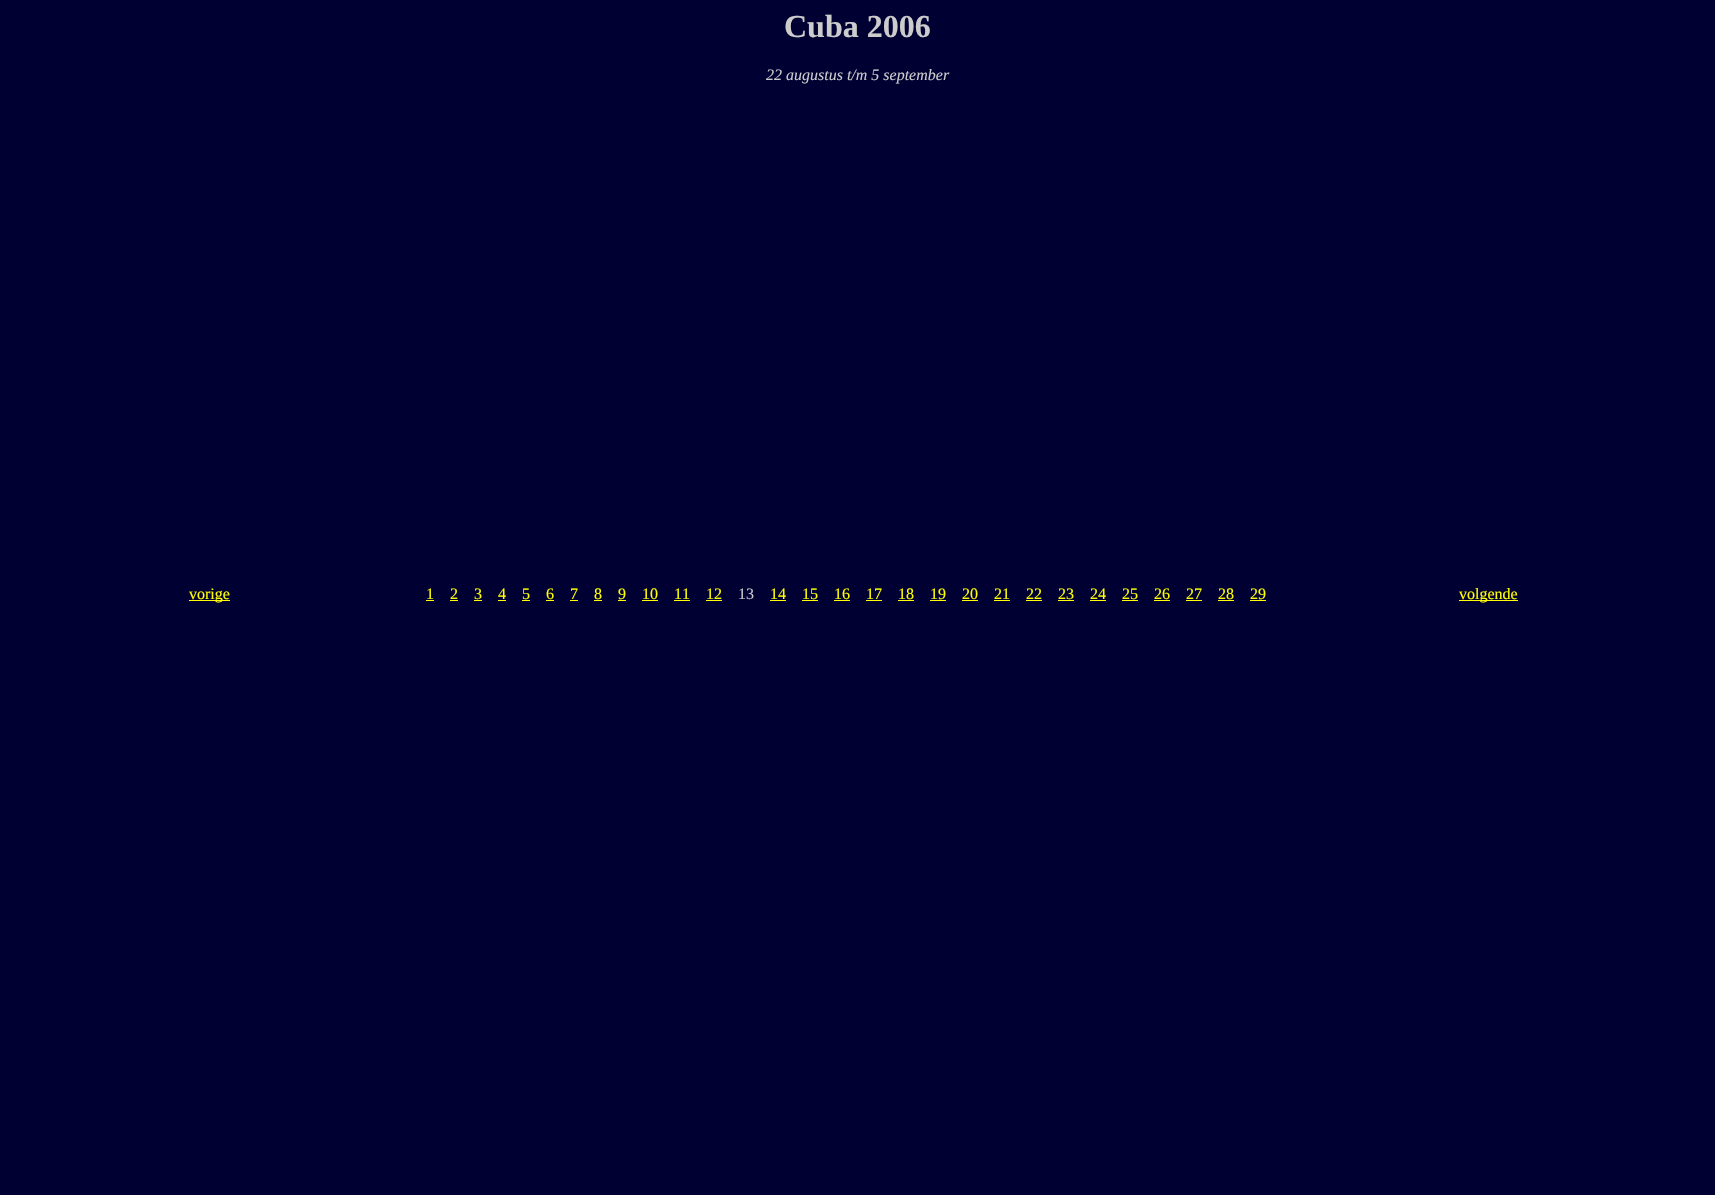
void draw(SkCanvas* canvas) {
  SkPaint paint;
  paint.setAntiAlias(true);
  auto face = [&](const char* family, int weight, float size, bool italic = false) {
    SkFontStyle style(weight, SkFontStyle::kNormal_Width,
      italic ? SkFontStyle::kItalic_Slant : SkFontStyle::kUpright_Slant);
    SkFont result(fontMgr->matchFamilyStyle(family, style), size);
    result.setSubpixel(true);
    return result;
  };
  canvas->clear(0xff000033);
  {
    const struct { float x, y, w, h; SkColor color; } items[] = {
      {189, 600, 41, 1, 0xffffff00},
      {426, 600, 8, 1, 0xffffff00},
      {450, 600, 8, 1, 0xffffff00},
      {474, 600, 8, 1, 0xffffff00},
      {498, 600, 8, 1, 0xffffff00},
      {522, 600, 8, 1, 0xffffff00},
      {546, 600, 8, 1, 0xffffff00},
      {570, 600, 8, 1, 0xffffff00},
      {594, 600, 8, 1, 0xffffff00},
      {618, 600, 8, 1, 0xffffff00},
      {642, 600, 16, 1, 0xffffff00},
      {674, 600, 16, 1, 0xffffff00},
      {706, 600, 16, 1, 0xffffff00},
      {770, 600, 16, 1, 0xffffff00},
      {802, 600, 16, 1, 0xffffff00},
      {834, 600, 16, 1, 0xffffff00},
      {866, 600, 16, 1, 0xffffff00},
      {898, 600, 16, 1, 0xffffff00},
      {930, 600, 16, 1, 0xffffff00},
      {962, 600, 16, 1, 0xffffff00},
      {994, 600, 16, 1, 0xffffff00},
      {1026, 600, 16, 1, 0xffffff00},
      {1058, 600, 16, 1, 0xffffff00},
      {1090, 600, 16, 1, 0xffffff00},
      {1122, 600, 16, 1, 0xffffff00},
      {1154, 600, 16, 1, 0xffffff00},
      {1186, 600, 16, 1, 0xffffff00},
      {1218, 600, 16, 1, 0xffffff00},
      {1250, 600, 16, 1, 0xffffff00},
      {1459, 600, 59, 1, 0xffffff00},
    };
    for (auto [x, y, w, h, color] : items) {
      paint.setColor(color);
      canvas->drawRect(SkRect::MakeXYWH(x, y, w, h), paint);
    }
  }
  auto f0 = face("Liberation Serif", 700, 32);
  paint.setColor(0xffcccccc);
  canvas->drawString("Cuba 2006", 784, 37, f0, paint);
  auto f1 = face("Liberation Serif", 400, 16, true);
  canvas->drawString("22 augustus t/m 5 september", 766, 80, f1, paint);
  auto f2 = face("Liberation Serif", 400, 16);
  paint.setColor(0xffffff00);
  {
    const struct { const char* s; float x, y; } items[] = {
      {"vorige", 189, 599},
      {"1", 426, 599},
      {"2", 450, 599},
      {"3", 474, 599},
      {"4", 498, 599},
      {"5", 522, 599},
      {"6", 546, 599},
      {"7", 570, 599},
      {"8", 594, 599},
      {"9", 618, 599},
      {"10", 642, 599},
      {"11", 674, 599},
      {"12", 706, 599},
    };
    for (auto [s, x, y] : items) {
      canvas->drawString(s, x, y, f2, paint);
    }
  }
  paint.setColor(0xffcccccc);
  canvas->drawString("13", 738, 599, f2, paint);
  paint.setColor(0xffffff00);
  {
    const struct { const char* s; float x, y; } items[] = {
      {"14", 770, 599},
      {"15", 802, 599},
      {"16", 834, 599},
      {"17", 866, 599},
      {"18", 898, 599},
      {"19", 930, 599},
      {"20", 962, 599},
      {"21", 994, 599},
      {"22", 1026, 599},
      {"23", 1058, 599},
      {"24", 1090, 599},
      {"25", 1122, 599},
      {"26", 1154, 599},
      {"27", 1186, 599},
      {"28", 1218, 599},
      {"29", 1250, 599},
      {"volgende", 1459, 599},
    };
    for (auto [s, x, y] : items) {
      canvas->drawString(s, x, y, f2, paint);
    }
  }
}
